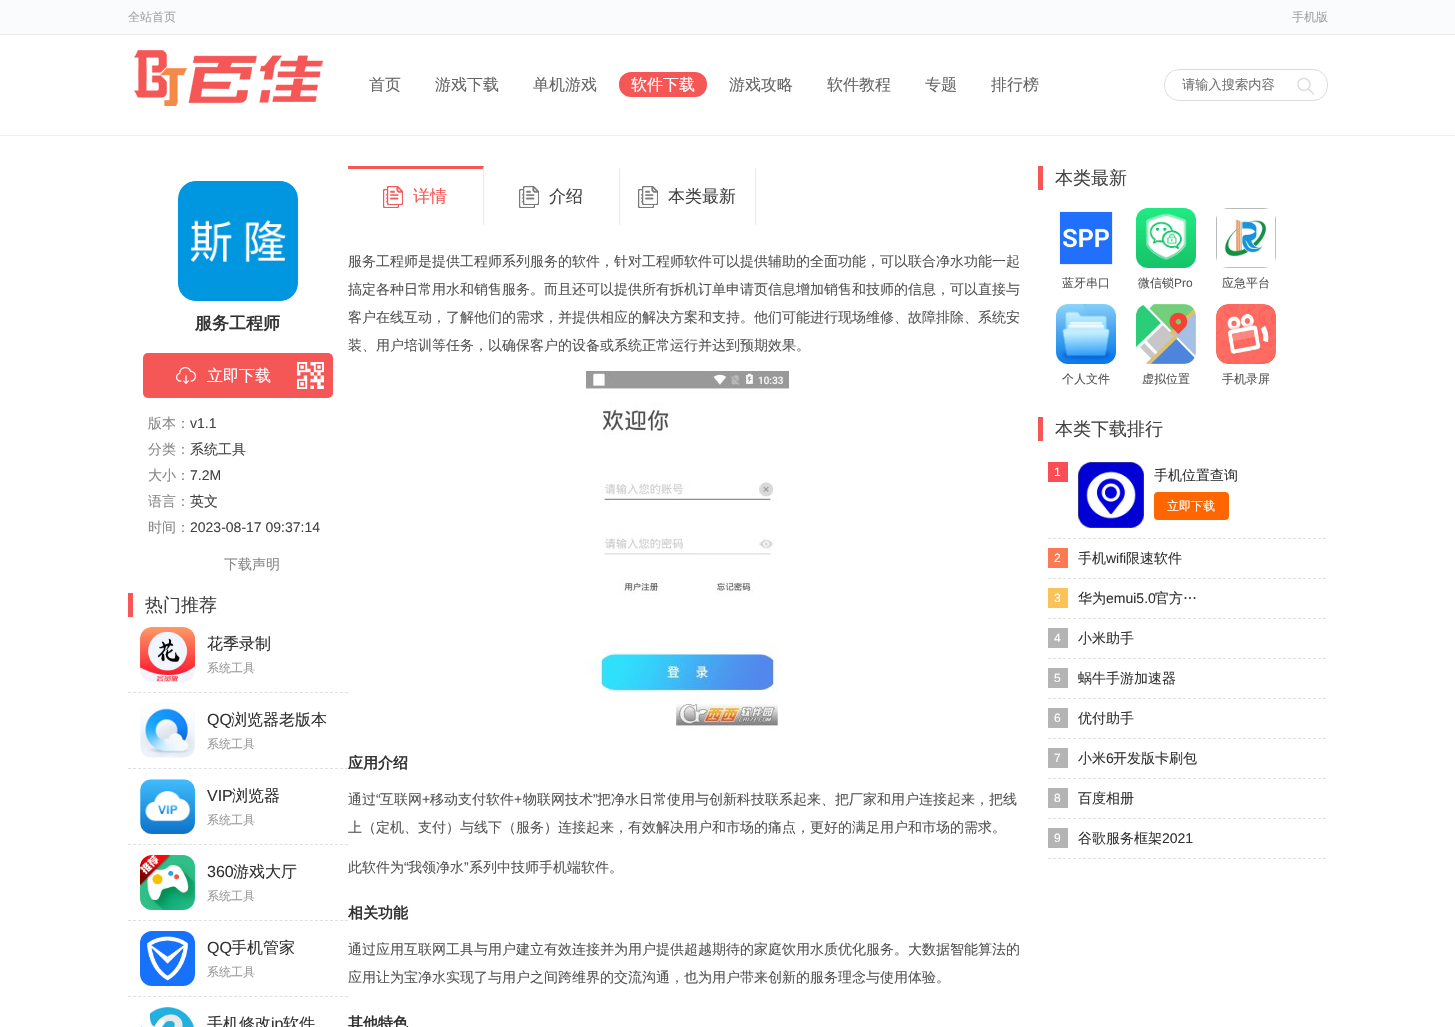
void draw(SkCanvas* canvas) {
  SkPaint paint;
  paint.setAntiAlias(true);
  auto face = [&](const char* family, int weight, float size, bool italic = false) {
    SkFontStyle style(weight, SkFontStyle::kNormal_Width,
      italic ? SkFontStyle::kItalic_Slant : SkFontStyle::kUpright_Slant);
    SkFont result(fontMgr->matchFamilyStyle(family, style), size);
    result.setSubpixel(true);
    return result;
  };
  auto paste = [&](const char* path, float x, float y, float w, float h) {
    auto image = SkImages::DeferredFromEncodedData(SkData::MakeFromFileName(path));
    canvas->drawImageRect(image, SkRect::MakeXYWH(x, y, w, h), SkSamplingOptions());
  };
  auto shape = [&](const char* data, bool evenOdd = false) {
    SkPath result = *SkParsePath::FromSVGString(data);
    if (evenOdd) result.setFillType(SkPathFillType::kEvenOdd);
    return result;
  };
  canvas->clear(0xffffffff);
  {
    const struct { float x, y, w, h; SkColor color; } items[] = {
      {0, 0, 1455, 34, 0xfffafbfc},
      {0, 34, 1455, 1, 0xffebebeb},
      {0, 135, 1455, 1, 0xffeeeeee},
    };
    for (auto [x, y, w, h, color] : items) {
      paint.setColor(color);
      canvas->drawRect(SkRect::MakeXYWH(x, y, w, h), paint);
    }
  }
  paste("img/1.png", 134, 50, 189, 56);
  paint.setColor(0xfff55656);
  canvas->drawRoundRect(SkRect::MakeXYWH(619, 72, 88, 25), 12, 12, paint);
  paint.setStroke(true);
  paint.setStrokeWidth(1);
  paint.setColor(0xffdddddd);
  canvas->drawRoundRect(SkRect::MakeXYWH(1164.5f, 69.5f, 163, 31), 14.5f, 14.5f, paint);
  paste("img/2.png", 1297, 77, 18, 18);
  paste("img/3.png", 178, 181, 120, 120);
  paint.setStroke(false);
  paint.setColor(0xfff55656);
  canvas->drawRoundRect(SkRect::MakeXYWH(143, 353, 190, 45), 5, 5, paint);
  paste("img/4.png", 176, 367, 20, 17);
  paste("img/5.png", 297, 362, 27, 27);
  canvas->drawRect(SkRect::MakeXYWH(128, 593, 5, 24), paint);
  paint.setStroke(true);
  paint.setColor(0xffe0e0e0);
  paint.setPathEffect(SkDashPathEffect::Make({{3, 2.05f}}, 0));
  canvas->drawPath(shape("M128 692.5H348"), paint);
  paint.setPathEffect(nullptr);
  paste("img/6.png", 140, 627, 55, 55);
  paint.setPathEffect(SkDashPathEffect::Make({{3, 2.05f}}, 0));
  canvas->drawPath(shape("M128 768.5H348"), paint);
  paint.setPathEffect(nullptr);
  paste("img/7.png", 140, 703, 55, 55);
  paint.setPathEffect(SkDashPathEffect::Make({{3, 2.05f}}, 0));
  canvas->drawPath(shape("M128 844.5H348"), paint);
  paint.setPathEffect(nullptr);
  paste("img/8.png", 140, 779, 55, 55);
  paint.setPathEffect(SkDashPathEffect::Make({{3, 2.05f}}, 0));
  canvas->drawPath(shape("M128 920.5H348"), paint);
  paint.setPathEffect(nullptr);
  paste("img/9.png", 140, 855, 55, 55);
  paint.setPathEffect(SkDashPathEffect::Make({{3, 2.05f}}, 0));
  canvas->drawPath(shape("M128 996.5H348"), paint);
  paint.setPathEffect(nullptr);
  paste("img/10.png", 140, 931, 55, 55);
  paste("img/11.png", 140, 1007, 55, 20);
  paint.setStroke(false);
  paint.setColor(0xfff55656);
  canvas->drawPath(shape("M348 166H484L483 169H348Z"), paint);
  paint.setColor(0xffebebeb);
  canvas->drawPath(shape("M484 166V225H483V169Z"), paint);
  paste("img/12.png", 383, 186, 20, 22);
  canvas->drawPath(shape("M620 166V225H619V169Z"), paint);
  paste("img/13.png", 519, 186, 20, 22);
  canvas->drawPath(shape("M756 166V225H755V169Z"), paint);
  paste("img/13.png", 638, 186, 20, 22);
  paste("img/14.png", 586, 371, 203, 360);
  paint.setColor(0xfff55656);
  canvas->drawRect(SkRect::MakeXYWH(1038, 166, 5, 24), paint);
  paste("img/15.png", 1059, 211, 54, 54);
  paste("img/16.png", 1136, 208, 60, 60);
  paste("img/17.png", 1216, 208, 60, 60);
  paste("img/18.png", 1056, 304, 60, 60);
  paste("img/19.png", 1136, 304, 60, 60);
  paste("img/20.png", 1216, 304, 60, 60);
  canvas->drawRect(SkRect::MakeXYWH(1038, 417, 5, 24), paint);
  canvas->save();
  canvas->clipRect(SkRect::MakeXYWH(1048, 453, 278, 406));
  paint.setStroke(true);
  paint.setColor(0xffe0e0e0);
  paint.setPathEffect(SkDashPathEffect::Make({{3, 2}}, 0));
  canvas->drawPath(shape("M1048 538.5H1336"), paint);
  paint.setPathEffect(nullptr);
  canvas->restore();
  paint.setStroke(false);
  paint.setColor(0xfffa4e57);
  canvas->drawRect(SkRect::MakeXYWH(1048, 462, 20, 20), paint);
  paste("img/21.png", 1078, 462, 66, 66);
  paint.setColor(0xffff6600);
  canvas->drawRoundRect(SkRect::MakeXYWH(1154, 492, 75, 28), 4, 4, paint);
  canvas->save();
  canvas->clipRect(SkRect::MakeXYWH(1048, 453, 278, 406));
  paint.setStroke(true);
  paint.setColor(0xffe0e0e0);
  paint.setPathEffect(SkDashPathEffect::Make({{3, 2}}, 0));
  canvas->drawPath(shape("M1048 578.5H1336"), paint);
  paint.setPathEffect(nullptr);
  canvas->restore();
  paint.setStroke(false);
  paint.setColor(0xfffa7a53);
  canvas->drawRect(SkRect::MakeXYWH(1048, 548, 20, 20), paint);
  canvas->save();
  canvas->clipRect(SkRect::MakeXYWH(1048, 453, 278, 406));
  paint.setStroke(true);
  paint.setColor(0xffe0e0e0);
  paint.setPathEffect(SkDashPathEffect::Make({{3, 2}}, 0));
  canvas->drawPath(shape("M1048 618.5H1336"), paint);
  paint.setPathEffect(nullptr);
  canvas->restore();
  paint.setStroke(false);
  paint.setColor(0xfffbc258);
  canvas->drawRect(SkRect::MakeXYWH(1048, 588, 20, 20), paint);
  canvas->save();
  canvas->clipRect(SkRect::MakeXYWH(1048, 453, 278, 406));
  paint.setStroke(true);
  paint.setColor(0xffe0e0e0);
  paint.setPathEffect(SkDashPathEffect::Make({{3, 2}}, 0));
  canvas->drawPath(shape("M1048 658.5H1336"), paint);
  paint.setPathEffect(nullptr);
  canvas->restore();
  paint.setStroke(false);
  paint.setColor(0xffb4b4b4);
  canvas->drawRect(SkRect::MakeXYWH(1048, 628, 20, 20), paint);
  canvas->save();
  canvas->clipRect(SkRect::MakeXYWH(1048, 453, 278, 406));
  paint.setStroke(true);
  paint.setColor(0xffe0e0e0);
  paint.setPathEffect(SkDashPathEffect::Make({{3, 2}}, 0));
  canvas->drawPath(shape("M1048 698.5H1336"), paint);
  paint.setPathEffect(nullptr);
  canvas->restore();
  paint.setStroke(false);
  paint.setColor(0xffb4b4b4);
  canvas->drawRect(SkRect::MakeXYWH(1048, 668, 20, 20), paint);
  canvas->save();
  canvas->clipRect(SkRect::MakeXYWH(1048, 453, 278, 406));
  paint.setStroke(true);
  paint.setColor(0xffe0e0e0);
  paint.setPathEffect(SkDashPathEffect::Make({{3, 2}}, 0));
  canvas->drawPath(shape("M1048 738.5H1336"), paint);
  paint.setPathEffect(nullptr);
  canvas->restore();
  paint.setStroke(false);
  paint.setColor(0xffb4b4b4);
  canvas->drawRect(SkRect::MakeXYWH(1048, 708, 20, 20), paint);
  canvas->save();
  canvas->clipRect(SkRect::MakeXYWH(1048, 453, 278, 406));
  paint.setStroke(true);
  paint.setColor(0xffe0e0e0);
  paint.setPathEffect(SkDashPathEffect::Make({{3, 2}}, 0));
  canvas->drawPath(shape("M1048 778.5H1336"), paint);
  paint.setPathEffect(nullptr);
  canvas->restore();
  paint.setStroke(false);
  paint.setColor(0xffb4b4b4);
  canvas->drawRect(SkRect::MakeXYWH(1048, 748, 20, 20), paint);
  canvas->save();
  canvas->clipRect(SkRect::MakeXYWH(1048, 453, 278, 406));
  paint.setStroke(true);
  paint.setColor(0xffe0e0e0);
  paint.setPathEffect(SkDashPathEffect::Make({{3, 2}}, 0));
  canvas->drawPath(shape("M1048 818.5H1336"), paint);
  paint.setPathEffect(nullptr);
  canvas->restore();
  paint.setStroke(false);
  paint.setColor(0xffb4b4b4);
  canvas->drawRect(SkRect::MakeXYWH(1048, 788, 20, 20), paint);
  canvas->save();
  canvas->clipRect(SkRect::MakeXYWH(1048, 453, 278, 406));
  paint.setStroke(true);
  paint.setColor(0xffe0e0e0);
  paint.setPathEffect(SkDashPathEffect::Make({{3, 2}}, 0));
  canvas->drawPath(shape("M1048 858.5H1336"), paint);
  paint.setPathEffect(nullptr);
  canvas->restore();
  paint.setStroke(false);
  paint.setColor(0xffb4b4b4);
  canvas->drawRect(SkRect::MakeXYWH(1048, 828, 20, 20), paint);
  auto f0 = face("WenQuanYi Zen Hei", 500, 12);
  paint.setColor(0xffa3a4a4);
  canvas->drawString("全站首页", 128, 21, f0, paint);
  canvas->drawString("手机版", 1292, 21, f0, paint);
  auto f1 = face("WenQuanYi Zen Hei", 500, 16);
  paint.setColor(0xff666666);
  {
    const struct { const char* s; float x, y; } items[] = {
      {"首页", 369, 90},
      {"游戏下载", 435, 90},
      {"单机游戏", 533, 90},
    };
    for (auto [s, x, y] : items) {
      canvas->drawString(s, x, y, f1, paint);
    }
  }
  paint.setColor(0xffffffff);
  canvas->drawString("软件下载", 631, 90, f1, paint);
  paint.setColor(0xff666666);
  {
    const struct { const char* s; float x, y; } items[] = {
      {"游戏攻略", 729, 90},
      {"软件教程", 827, 90},
      {"专题", 925, 90},
      {"排行榜", 991, 90},
    };
    for (auto [s, x, y] : items) {
      canvas->drawString(s, x, y, f1, paint);
    }
  }
  auto f2 = face("WenQuanYi Zen Hei", 500, 13.25f);
  paint.setColor(0xff757575);
  canvas->drawString("请输入搜索内容", 1182, 89, f2, paint);
  auto f3 = face("WenQuanYi Zen Hei", 700, 17);
  paint.setColor(0xff333333);
  canvas->drawString("服务工程师", 195, 329, f3, paint);
  paint.setColor(0xffffffff);
  canvas->drawString("立即下载", 207, 381, f1, paint);
  auto f4 = face("WenQuanYi Zen Hei", 500, 14);
  paint.setColor(0xff898989);
  canvas->drawString("版本：", 148, 428, f4, paint);
  auto f5 = face("Liberation Sans", 400, 14);
  paint.setColor(0xff444444);
  canvas->drawString("v1.1", 190, 428, f5, paint);
  paint.setColor(0xff898989);
  canvas->drawString("分类：", 148, 454, f4, paint);
  paint.setColor(0xff444444);
  canvas->drawString("系统工具", 190, 454, f4, paint);
  paint.setColor(0xff898989);
  canvas->drawString("大小：", 148, 480, f4, paint);
  paint.setColor(0xff444444);
  canvas->drawString("7.2M", 190, 480, f5, paint);
  paint.setColor(0xff898989);
  canvas->drawString("语言：", 148, 506, f4, paint);
  paint.setColor(0xff444444);
  canvas->drawString("英文", 190, 506, f4, paint);
  paint.setColor(0xff898989);
  canvas->drawString("时间：", 148, 532, f4, paint);
  paint.setColor(0xff444444);
  canvas->drawString("2023-08-17 09:37:14", 190, 532, f5, paint);
  paint.setColor(0xff898989);
  canvas->drawString("下载声明", 224, 569, f4, paint);
  auto f6 = face("WenQuanYi Zen Hei", 500, 18);
  paint.setColor(0xff444444);
  canvas->drawString("热门推荐", 145, 611, f6, paint);
  paint.setColor(0xff333333);
  canvas->drawString("花季录制", 207, 649, f1, paint);
  paint.setColor(0xff999999);
  canvas->drawString("系统工具", 207, 672, f0, paint);
  auto f7 = face("Liberation Sans", 400, 16);
  paint.setColor(0xff333333);
  canvas->drawString("QQ", 207, 725, f7, paint);
  canvas->drawString("浏览器老版本", 231, 725, f1, paint);
  paint.setColor(0xff999999);
  canvas->drawString("系统工具", 207, 748, f0, paint);
  paint.setColor(0xff333333);
  canvas->drawString("VIP", 207, 801, f7, paint);
  canvas->drawString("浏览器", 232, 801, f1, paint);
  paint.setColor(0xff999999);
  canvas->drawString("系统工具", 207, 824, f0, paint);
  paint.setColor(0xff333333);
  canvas->drawString("360", 207, 877, f7, paint);
  canvas->drawString("游戏大厅", 233, 877, f1, paint);
  paint.setColor(0xff999999);
  canvas->drawString("系统工具", 207, 900, f0, paint);
  paint.setColor(0xff333333);
  canvas->drawString("QQ", 207, 953, f7, paint);
  canvas->drawString("手机管家", 231, 953, f1, paint);
  paint.setColor(0xff999999);
  canvas->drawString("系统工具", 207, 976, f0, paint);
  paint.setColor(0xff333333);
  canvas->drawString("手机修改", 207, 1029, f1, paint);
  canvas->drawString("ip", 271, 1029, f7, paint);
  canvas->drawString("软件", 283, 1029, f1, paint);
  auto f8 = face("WenQuanYi Zen Hei", 500, 17);
  paint.setColor(0xfff55656);
  canvas->drawString("详情", 413, 202, f8, paint);
  paint.setColor(0xff444444);
  canvas->drawString("介绍", 549, 202, f8, paint);
  canvas->drawString("本类最新", 668, 202, f8, paint);
  paint.setColor(0xff555555);
  {
    const struct { const char* s; float x, y; } items[] = {
      {"服务工程师是提供工程师系列服务的软件，针对工程师软件可以提供辅助的全面功能，可以联合净水功能一起", 348, 266},
      {"搞定各种日常用水和销售服务。而且还可以提供所有拆机订单申请页信息增加销售和技师的信息，可以直接与", 348, 294},
      {"客户在线互动，了解他们的需求，并提供相应的解决方案和支持。他们可能进行现场维修、故障排除、系统安", 348, 322},
      {"装、用户培训等任务，以确保客户的设备或系统正常运行并达到预期效果。", 348, 350},
    };
    for (auto [s, x, y] : items) {
      canvas->drawString(s, x, y, f4, paint);
    }
  }
  auto f9 = face("WenQuanYi Zen Hei", 700, 15);
  paint.setColor(0xff333333);
  canvas->drawString("应用介绍", 348, 768, f9, paint);
  paint.setColor(0xff555555);
  canvas->drawString("通过", 348, 804, f4, paint);
  canvas->drawString("“", 376, 804, f5, paint);
  canvas->drawString("互联网", 380, 804, f4, paint);
  canvas->drawString("+", 422, 804, f5, paint);
  canvas->drawString("移动支付软件", 430, 804, f4, paint);
  canvas->drawString("+", 514, 804, f5, paint);
  canvas->drawString("物联网技术", 523, 804, f4, paint);
  canvas->drawString("”", 593, 804, f5, paint);
  {
    const struct { const char* s; float x, y; } items[] = {
      {"把净水日常使用与创新科技联系起来、把厂家和用户连接起来，把线", 597, 804},
      {"上（定机、支付）与线下（服务）连接起来，有效解决用户和市场的痛点，更好的满足用户和市场的需求。", 348, 832},
      {"此软件为", 348, 872},
    };
    for (auto [s, x, y] : items) {
      canvas->drawString(s, x, y, f4, paint);
    }
  }
  canvas->drawString("“", 404, 872, f5, paint);
  canvas->drawString("我领净水", 408, 872, f4, paint);
  canvas->drawString("”", 464, 872, f5, paint);
  canvas->drawString("系列中技师手机端软件。", 469, 872, f4, paint);
  paint.setColor(0xff333333);
  canvas->drawString("相关功能", 348, 918, f9, paint);
  paint.setColor(0xff555555);
  canvas->drawString("通过应用互联网工具与用户建立有效连接并为用户提供超越期待的家庭饮用水质优化服务。大数据智能算法的", 348, 954, f4, paint);
  canvas->drawString("应用让为宝净水实现了与用户之间跨维界的交流沟通，也为用户带来创新的服务理念与使用体验。", 348, 982, f4, paint);
  paint.setColor(0xff333333);
  canvas->drawString("其他特色", 348, 1028, f9, paint);
  paint.setColor(0xff444444);
  canvas->drawString("本类最新", 1055, 184, f6, paint);
  paint.setColor(0xff555555);
  canvas->drawString("蓝牙串口", 1062, 287, f0, paint);
  canvas->drawString("微信锁", 1138, 287, f0, paint);
  auto f10 = face("Liberation Sans", 400, 12);
  canvas->drawString("Pro", 1174, 287, f10, paint);
  {
    const struct { const char* s; float x, y; } items[] = {
      {"应急平台", 1222, 287},
      {"个人文件", 1062, 383},
      {"虚拟位置", 1142, 383},
      {"手机录屏", 1222, 383},
    };
    for (auto [s, x, y] : items) {
      canvas->drawString(s, x, y, f0, paint);
    }
  }
  paint.setColor(0xff444444);
  canvas->drawString("本类下载排行", 1055, 435, f6, paint);
  paint.setColor(0xffffffff);
  canvas->drawString("1", 1054, 476, f10, paint);
  paint.setColor(0xff333333);
  canvas->drawString("手机位置查询", 1154, 480, f4, paint);
  paint.setColor(0xffffffff);
  canvas->drawString("立即下载", 1167, 510, f0, paint);
  canvas->drawString("2", 1054, 562, f10, paint);
  paint.setColor(0xff333333);
  canvas->drawString("手机", 1078, 563, f4, paint);
  canvas->drawString("wifi", 1106, 563, f5, paint);
  canvas->drawString("限速软件", 1126, 563, f4, paint);
  paint.setColor(0xffffffff);
  canvas->drawString("3", 1054, 602, f10, paint);
  paint.setColor(0xff333333);
  canvas->drawString("华为", 1078, 603, f4, paint);
  canvas->drawString("emui5.0", 1106, 603, f5, paint);
  canvas->drawString("官方…", 1155, 603, f4, paint);
  paint.setColor(0xffffffff);
  canvas->drawString("4", 1054, 642, f10, paint);
  paint.setColor(0xff333333);
  canvas->drawString("小米助手", 1078, 643, f4, paint);
  paint.setColor(0xffffffff);
  canvas->drawString("5", 1054, 682, f10, paint);
  canvas->save();
  canvas->clipRect(SkRect::MakeXYWH(1078, 659, 128, 39));
  paint.setColor(0xff333333);
  canvas->drawString("蜗牛手游加速器", 1078, 683, f4, paint);
  canvas->restore();
  paint.setColor(0xffffffff);
  canvas->drawString("6", 1054, 722, f10, paint);
  paint.setColor(0xff333333);
  canvas->drawString("优付助手", 1078, 723, f4, paint);
  paint.setColor(0xffffffff);
  canvas->drawString("7", 1054, 762, f10, paint);
  paint.setColor(0xff333333);
  canvas->drawString("小米", 1078, 763, f4, paint);
  canvas->drawString("6", 1106, 763, f5, paint);
  canvas->drawString("开发版卡刷包", 1113, 763, f4, paint);
  paint.setColor(0xffffffff);
  canvas->drawString("8", 1054, 802, f10, paint);
  paint.setColor(0xff333333);
  canvas->drawString("百度相册", 1078, 803, f4, paint);
  paint.setColor(0xffffffff);
  canvas->drawString("9", 1054, 842, f10, paint);
  paint.setColor(0xff333333);
  canvas->drawString("谷歌服务框架", 1078, 843, f4, paint);
  canvas->drawString("2021", 1162, 843, f5, paint);
}
